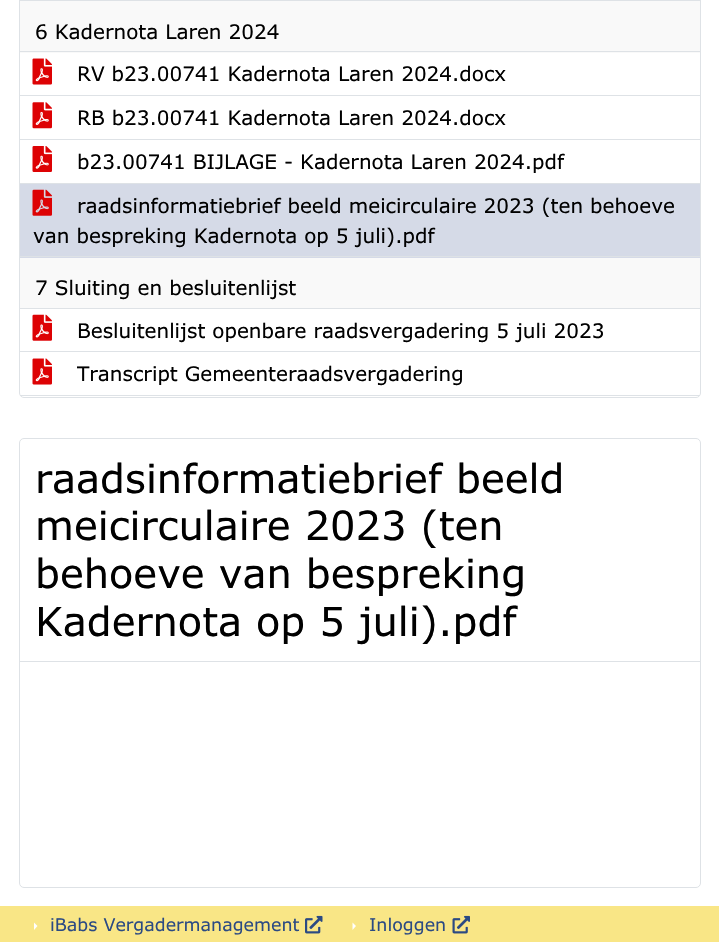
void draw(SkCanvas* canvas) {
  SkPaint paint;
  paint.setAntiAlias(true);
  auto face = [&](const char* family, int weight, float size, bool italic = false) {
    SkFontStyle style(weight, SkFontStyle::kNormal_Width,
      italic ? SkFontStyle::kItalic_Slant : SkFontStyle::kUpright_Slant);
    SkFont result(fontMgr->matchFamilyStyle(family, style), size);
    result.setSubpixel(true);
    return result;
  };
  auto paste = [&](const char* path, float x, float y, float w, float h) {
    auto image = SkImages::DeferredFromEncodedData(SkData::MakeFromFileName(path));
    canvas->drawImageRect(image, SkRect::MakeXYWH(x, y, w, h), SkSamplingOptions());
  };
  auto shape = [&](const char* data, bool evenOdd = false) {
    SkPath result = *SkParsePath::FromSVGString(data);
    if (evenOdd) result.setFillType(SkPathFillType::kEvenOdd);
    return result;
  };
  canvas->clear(0xffffffff);
  paint.setStroke(true);
  paint.setStrokeWidth(1);
  paint.setColor(0xffdee2e6);
  canvas->drawRoundRect(SkRect::MakeXYWH(19.5f, -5.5f, 681, 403), 4.5f, 4.5f, paint);
  paint.setStroke(false);
  {
    const struct { float x, y, w, h; SkColor color; } items[] = {
      {20, 0, 680, 1, 0xffdee2e6},
      {20, 1, 680, 52, 0xfff9f9f9},
      {20, 51, 680, 1, 0xffdee2e6},
      {20, 95, 680, 1, 0xffdee2e6},
    };
    for (auto [x, y, w, h, color] : items) {
      paint.setColor(color);
      canvas->drawRect(SkRect::MakeXYWH(x, y, w, h), paint);
    }
  }
  paste("img/1.png", 32, 58, 20, 27);
  canvas->drawRect(SkRect::MakeXYWH(20, 139, 680, 1), paint);
  paste("img/2.png", 32, 102, 20, 27);
  canvas->drawRect(SkRect::MakeXYWH(20, 183, 680, 1), paint);
  paste("img/3.png", 32, 146, 20, 26);
  paint.setColor(0xffd5dae7);
  canvas->drawRect(SkRect::MakeXYWH(20, 184, 680, 74), paint);
  paint.setColor(0xffdee2e6);
  canvas->drawRect(SkRect::MakeXYWH(20, 256, 680, 1), paint);
  paste("img/4.png", 32, 189, 20, 27);
  {
    const struct { float x, y, w, h; SkColor color; } items[] = {
      {20, 258, 680, 50, 0xfff9f9f9},
      {20, 308, 680, 1, 0xffdee2e6},
      {20, 351, 680, 1, 0xffdee2e6},
    };
    for (auto [x, y, w, h, color] : items) {
      paint.setColor(color);
      canvas->drawRect(SkRect::MakeXYWH(x, y, w, h), paint);
    }
  }
  paste("img/5.png", 32, 314, 20, 27);
  canvas->drawRect(SkRect::MakeXYWH(20, 395, 680, 1), paint);
  paste("img/1.png", 32, 358, 20, 27);
  paint.setStroke(true);
  canvas->drawRoundRect(SkRect::MakeXYWH(19.5f, 438.5f, 681, 449), 4.5f, 4.5f, paint);
  paint.setStroke(false);
  canvas->drawRect(SkRect::MakeXYWH(20, 661, 680, 1), paint);
  paint.setColor(0xfff9e686);
  canvas->drawRect(SkRect::MakeXYWH(0, 906, 719, 36), paint);
  paint.setColor(0xffffffff);
  canvas->drawPath(shape("M34 930V922.5L37.5 926Z"), paint);
  paste("img/6.png", 305, 915, 18, 19);
  canvas->drawPath(shape("M352.5 930V922.5L356 926Z"), paint);
  paste("img/7.png", 452, 915, 18, 19);
  auto f0 = face("Verdana", 400, 20);
  paint.setColor(0xff000000);
  {
    const struct { const char* s; float x, y; } items[] = {
      {"6 Kadernota Laren 2024", 35, 39},
      {"RV b23.00741 Kadernota Laren 2024.docx", 77, 81},
      {"RB b23.00741 Kadernota Laren 2024.docx", 77, 125},
      {"b23.00741 BIJLAGE - Kadernota Laren 2024.pdf", 77, 169},
      {"raadsinformatiebrief beeld meicirculaire 2023 (ten behoeve", 77, 213},
      {"van bespreking Kadernota op 5 juli).pdf", 33, 243},
      {"7 Sluiting en besluitenlijst", 35, 295},
      {"Besluitenlijst openbare raadsvergadering 5 juli 2023", 77, 338},
      {"Transcript Gemeenteraadsvergadering", 77, 381},
    };
    for (auto [s, x, y] : items) {
      canvas->drawString(s, x, y, f0, paint);
    }
  }
  auto f1 = face("Verdana", 400, 40);
  {
    const struct { const char* s; float x, y; } items[] = {
      {"raadsinformatiebrief beeld", 35, 493},
      {"meicirculaire 2023 (ten", 35, 540},
      {"behoeve van bespreking", 35, 588},
      {"Kadernota op 5 juli).pdf", 35, 636},
    };
    for (auto [s, x, y] : items) {
      canvas->drawString(s, x, y, f1, paint);
    }
  }
  auto f2 = face("Verdana", 400, 17.5f);
  paint.setColor(0xff2b4a83);
  canvas->drawString("iBabs Vergadermanagement", 50, 931, f2, paint);
  canvas->drawString("Inloggen", 369, 931, f2, paint);
}
